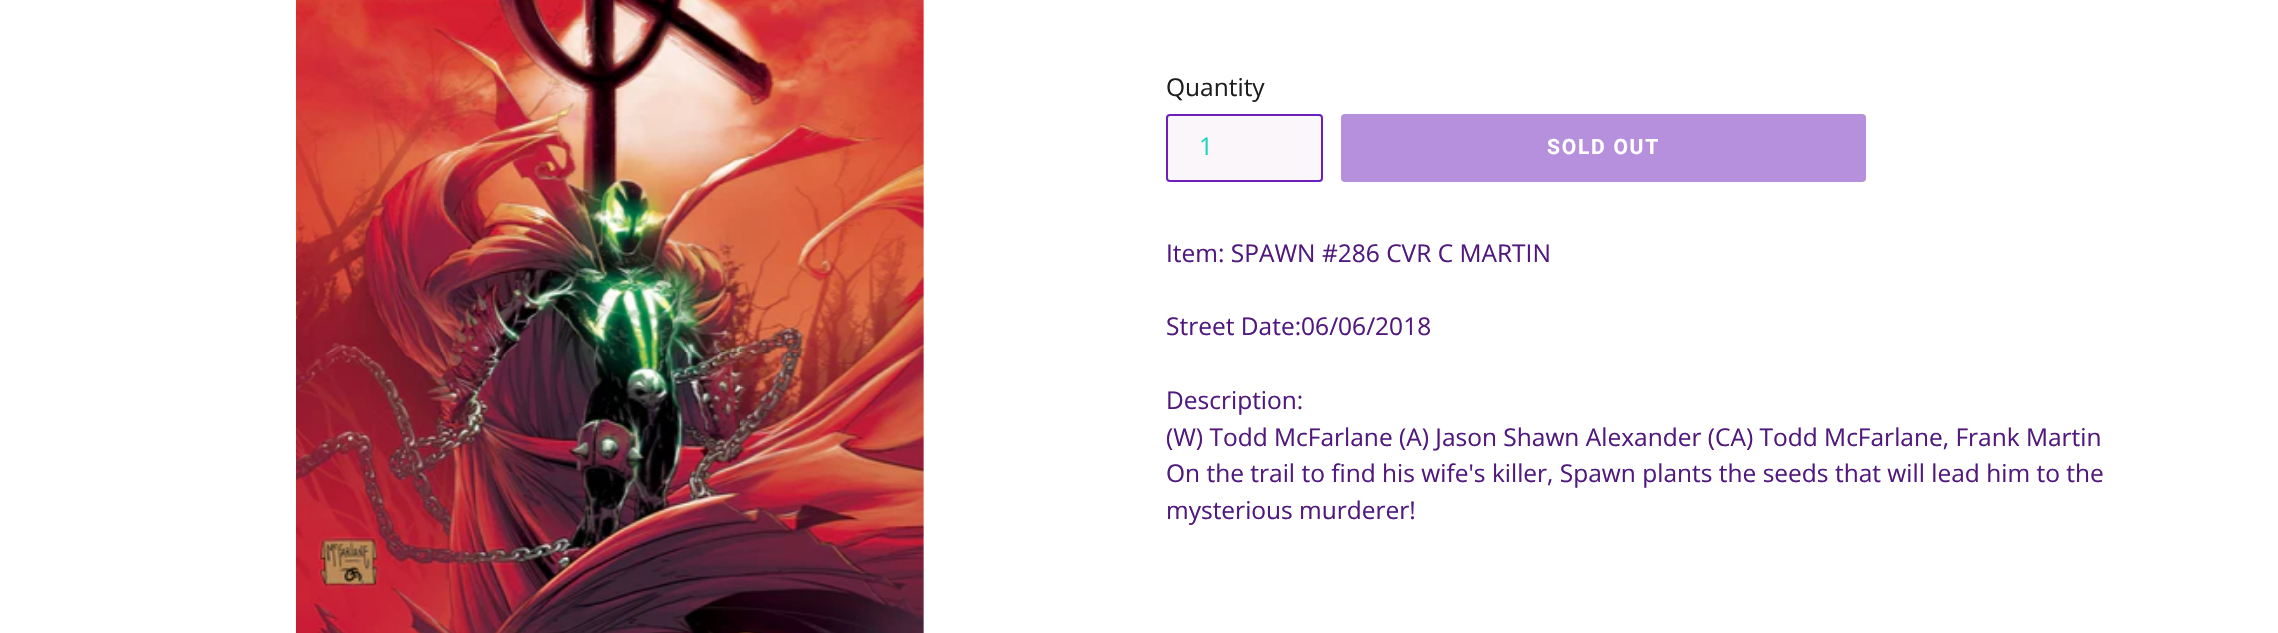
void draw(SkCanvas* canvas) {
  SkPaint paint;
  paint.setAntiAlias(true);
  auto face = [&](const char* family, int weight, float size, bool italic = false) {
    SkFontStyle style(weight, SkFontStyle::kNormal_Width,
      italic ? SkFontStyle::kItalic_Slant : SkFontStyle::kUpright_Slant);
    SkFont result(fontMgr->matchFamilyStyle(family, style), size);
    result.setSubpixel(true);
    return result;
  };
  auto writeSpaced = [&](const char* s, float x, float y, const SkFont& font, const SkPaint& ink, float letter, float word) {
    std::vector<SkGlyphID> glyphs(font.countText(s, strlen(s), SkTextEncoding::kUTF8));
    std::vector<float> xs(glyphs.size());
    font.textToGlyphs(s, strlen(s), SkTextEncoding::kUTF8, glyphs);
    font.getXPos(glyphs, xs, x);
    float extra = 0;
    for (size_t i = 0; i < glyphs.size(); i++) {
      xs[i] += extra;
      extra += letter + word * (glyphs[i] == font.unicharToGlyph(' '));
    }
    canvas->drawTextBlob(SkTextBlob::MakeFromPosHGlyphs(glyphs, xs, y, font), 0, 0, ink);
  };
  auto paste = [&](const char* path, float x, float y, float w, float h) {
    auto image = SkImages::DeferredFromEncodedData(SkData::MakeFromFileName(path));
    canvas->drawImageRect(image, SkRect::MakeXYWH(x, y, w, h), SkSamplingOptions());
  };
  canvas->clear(0xffffffff);
  paste("img/1.png", 296, 0, 628, 633);
  paint.setColor(0xfffaf6f9);
  canvas->drawRoundRect(SkRect::MakeXYWH(1167, 115, 155, 66), 3, 3, paint);
  paint.setStroke(true);
  paint.setStrokeWidth(2);
  paint.setColor(0xff6d1ebb);
  canvas->drawRoundRect(SkRect::MakeXYWH(1167, 115, 155, 66), 3, 3, paint);
  paint.setStroke(false);
  paint.setColor(0xffb68fdd);
  canvas->drawRoundRect(SkRect::MakeXYWH(1341, 114, 525, 68), 4, 4, paint);
  auto f0 = face("Open Sans", 400, 24.5f);
  paint.setColor(0xff1e1e1e);
  canvas->drawString("Quantity", 1166, 96, f0, paint);
  paint.setColor(0xff1dd5bd);
  canvas->drawString("1", 1199, 155, f0, paint);
  auto f1 = face("Roboto", 700, 21);
  paint.setColor(0xffffffff);
  writeSpaced("SOLD OUT", 1547, 154, f1, paint, 1.75f, 0);
  paint.setColor(0xff51197e);
  {
    const struct { const char* s; float x, y; } items[] = {
      {"Item: SPAWN #286 CVR C MARTIN", 1166, 262},
      {"Street Date:06/06/2018", 1166, 335},
      {"Description:", 1166, 409},
      {"(W) Todd McFarlane (A) Jason Shawn Alexander (CA) Todd McFarlane, Frank Martin", 1166, 446},
      {"On the trail to find his wife's killer, Spawn plants the seeds that will lead him to the", 1166, 482},
      {"mysterious murderer!", 1166, 519},
    };
    for (auto [s, x, y] : items) {
      canvas->drawString(s, x, y, f0, paint);
    }
  }
}
